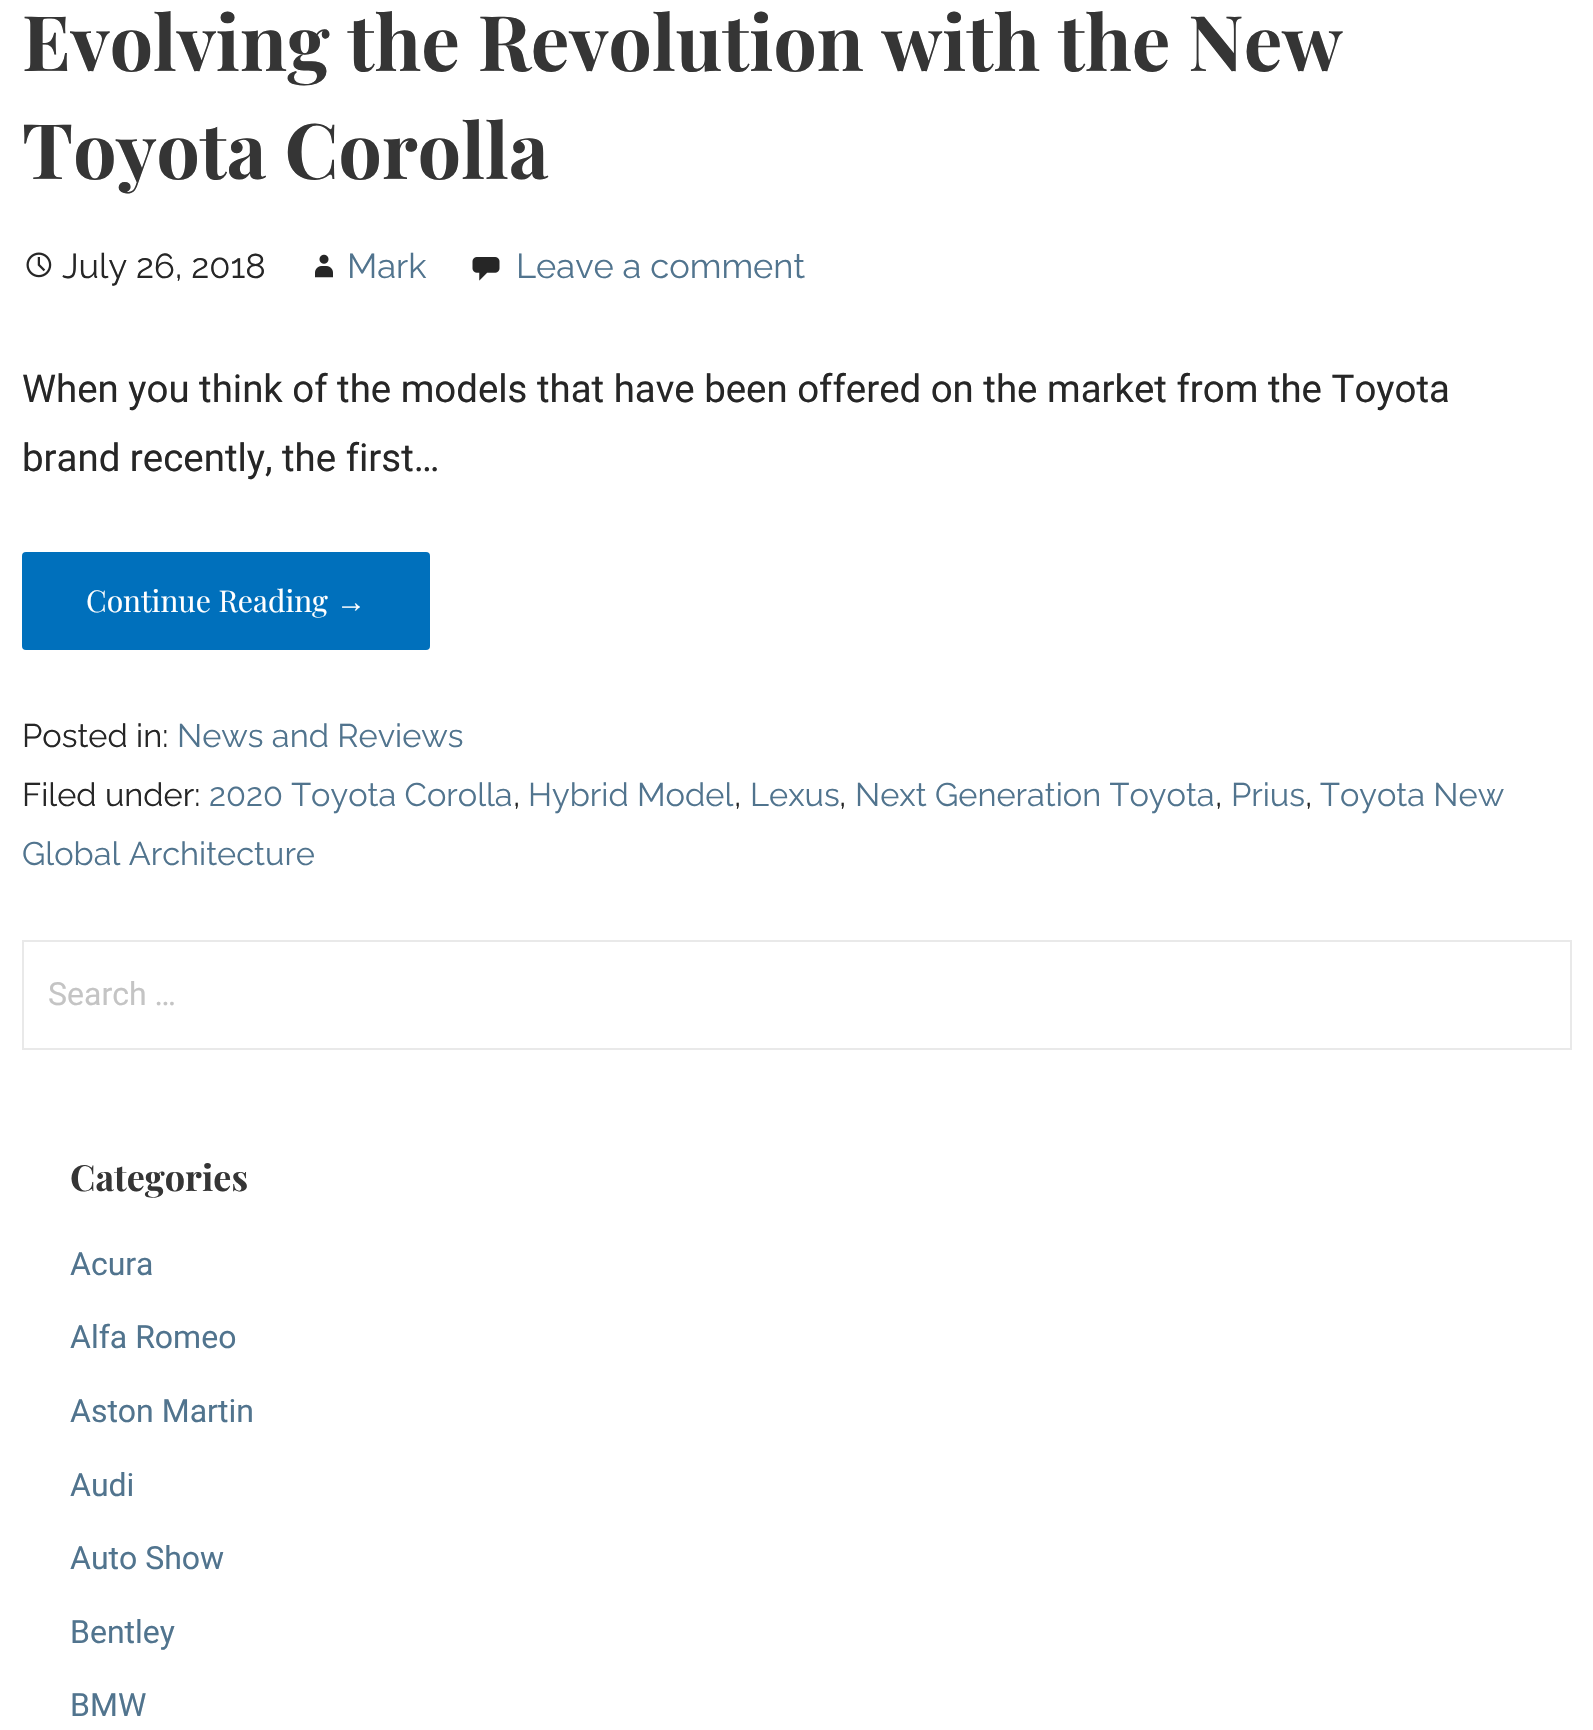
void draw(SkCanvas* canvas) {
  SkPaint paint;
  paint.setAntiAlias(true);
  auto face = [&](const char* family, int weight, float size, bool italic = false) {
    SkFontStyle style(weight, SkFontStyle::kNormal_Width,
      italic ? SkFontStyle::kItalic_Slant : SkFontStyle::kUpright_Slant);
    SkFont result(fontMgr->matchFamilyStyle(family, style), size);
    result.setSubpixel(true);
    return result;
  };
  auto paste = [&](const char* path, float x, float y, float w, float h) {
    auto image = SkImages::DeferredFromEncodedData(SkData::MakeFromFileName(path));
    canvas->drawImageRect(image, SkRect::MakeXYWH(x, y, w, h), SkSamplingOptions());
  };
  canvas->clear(0xffffffff);
  paste("img/1.png", 26, 252, 26, 26);
  paste("img/2.png", 315, 254, 18, 24);
  paste("img/3.png", 472, 257, 28, 24);
  paint.setColor(0xff0070bc);
  canvas->drawRoundRect(SkRect::MakeXYWH(22, 552, 408, 98), 4, 4, paint);
  paint.setStroke(true);
  paint.setStrokeWidth(2);
  paint.setColor(0xffe9e9e9);
  canvas->drawRect(SkRect::MakeXYWH(23, 941, 1548, 108), paint);
  auto f0 = face("Playfair Display", 700, 76.75f);
  paint.setStroke(false);
  paint.setColor(0xff353535);
  canvas->drawString("Evolving the Revolution with the New", 22, 71, f0, paint);
  canvas->drawString("Toyota Corolla", 22, 179, f0, paint);
  auto f1 = face("Raleway", 400, 34.5f);
  paint.setColor(0xff262626);
  canvas->drawString("July 26, 2018", 62, 278, f1, paint);
  paint.setColor(0xff51748e);
  canvas->drawString("Mark", 347, 278, f1, paint);
  canvas->drawString("Leave a comment", 516, 278, f1, paint);
  auto f2 = face("Roboto", 400, 38.4f);
  paint.setColor(0xff262626);
  canvas->drawString("When you think of the models that have been offered on the market from the Toyota", 22, 402, f2, paint);
  canvas->drawString("brand recently, the first…", 22, 471, f2, paint);
  auto f3 = face("Playfair Display", 400, 30);
  paint.setColor(0xffffffff);
  canvas->drawString("Continue Reading", 86, 612, f3, paint);
  auto f4 = face("Liberation Sans", 400, 30);
  canvas->drawString("→", 336, 612, f4, paint);
  auto f5 = face("Raleway", 400, 32.6f);
  paint.setColor(0xff262626);
  canvas->drawString("Posted in:", 22, 747, f5, paint);
  paint.setColor(0xff51748e);
  canvas->drawString("News and Reviews", 177, 747, f5, paint);
  paint.setColor(0xff262626);
  canvas->drawString("Filed under:", 22, 806, f5, paint);
  paint.setColor(0xff51748e);
  canvas->drawString("2020 Toyota Corolla", 209, 806, f5, paint);
  paint.setColor(0xff262626);
  canvas->drawString(",", 513, 806, f5, paint);
  paint.setColor(0xff51748e);
  canvas->drawString("Hybrid Model", 528, 806, f5, paint);
  paint.setColor(0xff262626);
  canvas->drawString(",", 734, 806, f5, paint);
  paint.setColor(0xff51748e);
  canvas->drawString("Lexus", 750, 806, f5, paint);
  paint.setColor(0xff262626);
  canvas->drawString(",", 839, 806, f5, paint);
  paint.setColor(0xff51748e);
  canvas->drawString("Next Generation Toyota", 855, 806, f5, paint);
  paint.setColor(0xff262626);
  canvas->drawString(",", 1215, 806, f5, paint);
  paint.setColor(0xff51748e);
  canvas->drawString("Prius", 1231, 806, f5, paint);
  paint.setColor(0xff262626);
  canvas->drawString(",", 1305, 806, f5, paint);
  paint.setColor(0xff51748e);
  canvas->drawString("Toyota New", 1320, 806, f5, paint);
  canvas->drawString("Global Architecture", 22, 865, f5, paint);
  auto f6 = face("Roboto", 400, 32);
  paint.setColor(0xffc4c4c4);
  canvas->drawString("Search …", 48, 1005, f6, paint);
  auto f7 = face("Playfair Display", 700, 36);
  paint.setColor(0xff353535);
  canvas->drawString("Categories", 70, 1191, f7, paint);
  paint.setColor(0xff51748e);
  {
    const struct { const char* s; float x, y; } items[] = {
      {"Acura", 70, 1275},
      {"Alfa Romeo", 70, 1348},
      {"Aston Martin", 70, 1422},
      {"Audi", 70, 1496},
      {"Auto Show", 70, 1569},
      {"Bentley", 70, 1643},
      {"BMW", 70, 1716},
    };
    for (auto [s, x, y] : items) {
      canvas->drawString(s, x, y, f6, paint);
    }
  }
}
